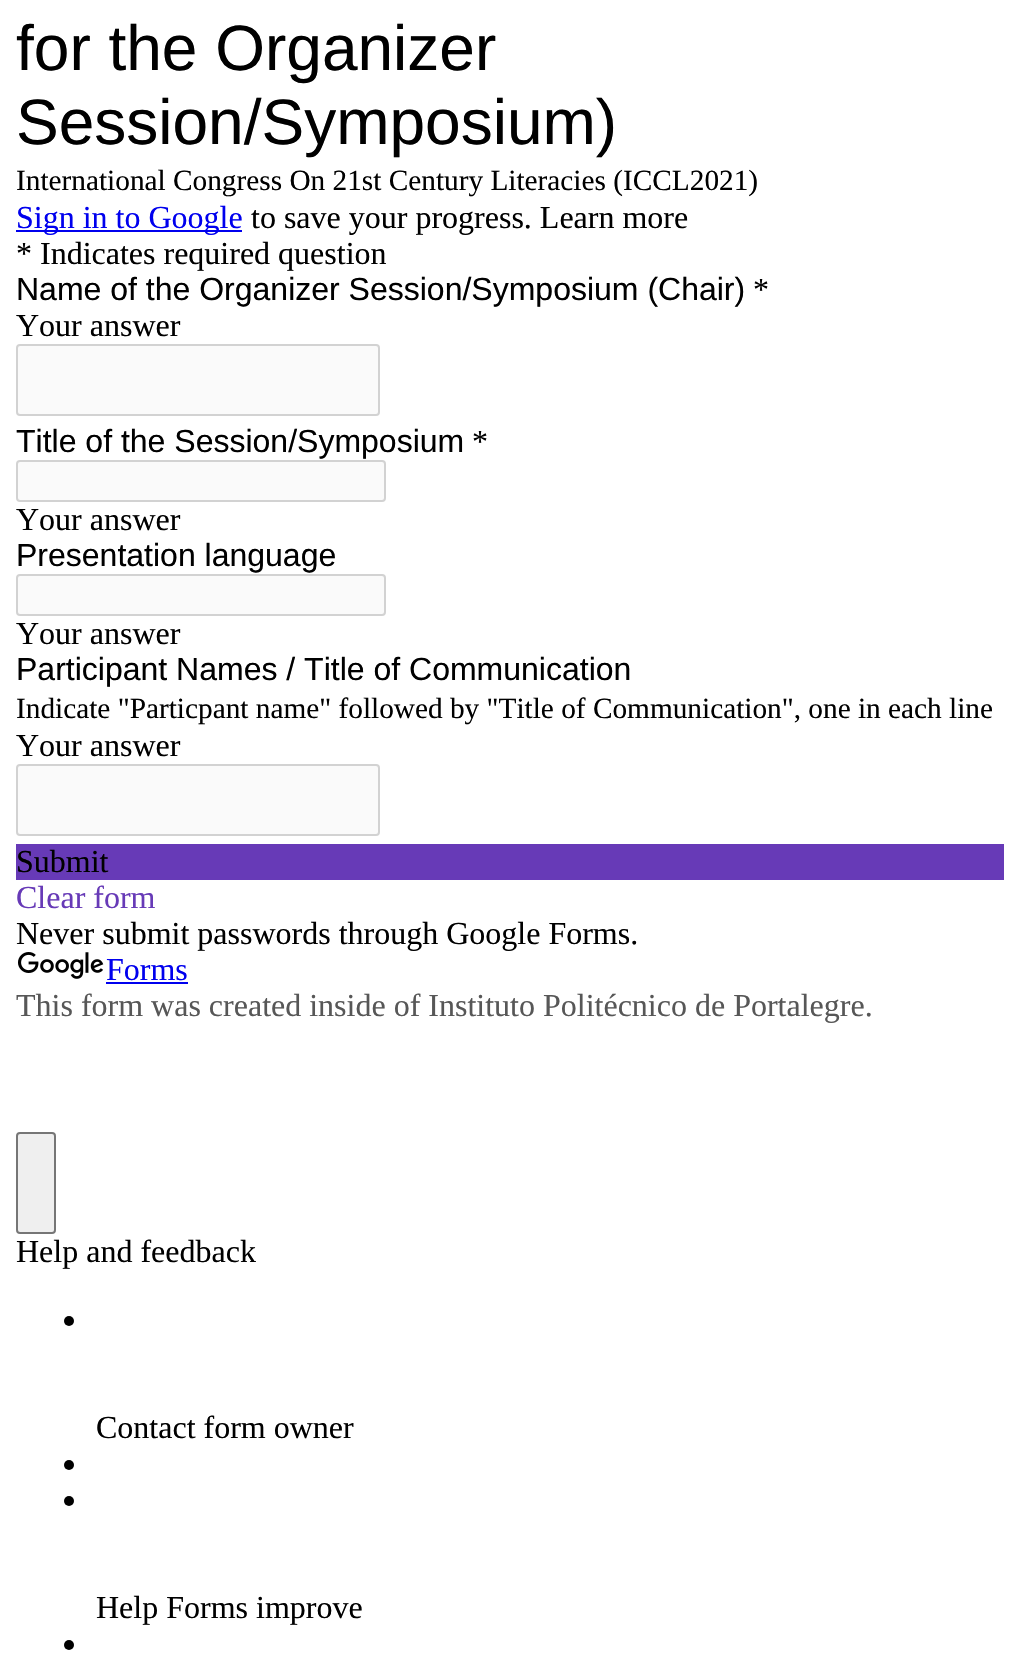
void draw(SkCanvas* canvas) {
  SkPaint paint;
  paint.setAntiAlias(true);
  auto face = [&](const char* family, int weight, float size, bool italic = false) {
    SkFontStyle style(weight, SkFontStyle::kNormal_Width,
      italic ? SkFontStyle::kItalic_Slant : SkFontStyle::kUpright_Slant);
    SkFont result(fontMgr->matchFamilyStyle(family, style), size);
    result.setSubpixel(true);
    return result;
  };
  auto paste = [&](const char* path, float x, float y, float w, float h) {
    auto image = SkImages::DeferredFromEncodedData(SkData::MakeFromFileName(path));
    canvas->drawImageRect(image, SkRect::MakeXYWH(x, y, w, h), SkSamplingOptions());
  };
  canvas->clear(0xffffffff);
  paint.setColor(0xff0000ee);
  canvas->drawRect(SkRect::MakeXYWH(16, 230, 226, 2), paint);
  paint.setColor(0xfffafafa);
  canvas->drawRoundRect(SkRect::MakeXYWH(17, 345, 362, 70), 3, 3, paint);
  paint.setStroke(true);
  paint.setStrokeWidth(2);
  paint.setColor(0xffd2d2d2);
  canvas->drawRoundRect(SkRect::MakeXYWH(17, 345, 362, 70), 3, 3, paint);
  paint.setStroke(false);
  paint.setColor(0xfffafafa);
  canvas->drawRoundRect(SkRect::MakeXYWH(17, 461, 368, 40), 3, 3, paint);
  paint.setStroke(true);
  paint.setColor(0xffd2d2d2);
  canvas->drawRoundRect(SkRect::MakeXYWH(17, 461, 368, 40), 3, 3, paint);
  paint.setStroke(false);
  paint.setColor(0xfffafafa);
  canvas->drawRoundRect(SkRect::MakeXYWH(17, 575, 368, 40), 3, 3, paint);
  paint.setStroke(true);
  paint.setColor(0xffd2d2d2);
  canvas->drawRoundRect(SkRect::MakeXYWH(17, 575, 368, 40), 3, 3, paint);
  paint.setStroke(false);
  paint.setColor(0xfffafafa);
  canvas->drawRoundRect(SkRect::MakeXYWH(17, 765, 362, 70), 3, 3, paint);
  paint.setStroke(true);
  paint.setColor(0xffd2d2d2);
  canvas->drawRoundRect(SkRect::MakeXYWH(17, 765, 362, 70), 3, 3, paint);
  paint.setStroke(false);
  paint.setColor(0xff673ab7);
  canvas->drawRect(SkRect::MakeXYWH(16, 844, 988, 36), paint);
  paste("img/1.png", 18, 952, 86, 27);
  paint.setColor(0xff0000ee);
  canvas->drawRect(SkRect::MakeXYWH(106, 982, 82, 2), paint);
  paint.setColor(0xffefefef);
  canvas->drawRoundRect(SkRect::MakeXYWH(17, 1133, 38, 100), 3, 3, paint);
  paint.setStroke(true);
  paint.setColor(0xff767676);
  canvas->drawRoundRect(SkRect::MakeXYWH(17, 1133, 38, 100), 3, 3, paint);
  paint.setStroke(false);
  paint.setColor(0xff000000);
  canvas->drawCircle(69, 1321, 5, paint);
  canvas->drawCircle(69, 1465, 5, paint);
  canvas->drawCircle(69, 1501, 5, paint);
  canvas->drawCircle(69, 1645, 5, paint);
  auto f0 = face("Liberation Sans", 400, 64);
  canvas->drawString("for the Organizer", 16, 70, f0, paint);
  canvas->drawString("Session/Symposium)", 16, 144, f0, paint);
  auto f1 = face("Liberation Serif", 400, 29.3f);
  canvas->drawString("International Congress On 21st Century Literacies (ICCL2021)", 16, 190, f1, paint);
  auto f2 = face("Liberation Serif", 400, 32);
  paint.setColor(0xff0000ee);
  canvas->drawString("Sign in to Google", 16, 228, f2, paint);
  paint.setColor(0xff000000);
  canvas->drawString("to save your progress. Learn more", 251, 228, f2, paint);
  canvas->drawString("* Indicates required question", 16, 264, f2, paint);
  auto f3 = face("Liberation Sans", 400, 32);
  canvas->drawString("Name of the Organizer Session/Symposium (Chair)", 16, 300, f3, paint);
  canvas->drawString("*", 753, 300, f2, paint);
  canvas->drawString("Your answer", 16, 336, f2, paint);
  canvas->drawString("Title of the Session/Symposium", 16, 452, f3, paint);
  canvas->drawString("*", 472, 452, f2, paint);
  canvas->drawString("Your answer", 16, 530, f2, paint);
  canvas->drawString("Presentation language", 16, 566, f3, paint);
  canvas->drawString("Your answer", 16, 644, f2, paint);
  canvas->drawString("Participant Names / Title of Communication", 16, 680, f3, paint);
  canvas->drawString("Indicate \"Particpant name\" followed by \"Title of Communication\", one in each line", 16, 718, f1, paint);
  canvas->drawString("Your answer", 16, 756, f2, paint);
  canvas->drawString("Submit", 16, 872, f2, paint);
  paint.setColor(0xff673ab7);
  canvas->drawString("Clear form", 16, 908, f2, paint);
  paint.setColor(0xff000000);
  canvas->drawString("Never submit passwords through Google Forms.", 16, 944, f2, paint);
  paint.setColor(0xff0000ee);
  canvas->drawString("Forms", 106, 980, f2, paint);
  paint.setColor(0xff575757);
  canvas->drawString("This form was created inside of Instituto Politécnico de Portalegre.", 16, 1016, f2, paint);
  paint.setColor(0xff000000);
  {
    const struct { const char* s; float x, y; } items[] = {
      {"Help and feedback", 16, 1262},
      {"Contact form owner", 96, 1438},
      {"Help Forms improve", 96, 1618},
    };
    for (auto [s, x, y] : items) {
      canvas->drawString(s, x, y, f2, paint);
    }
  }
}
